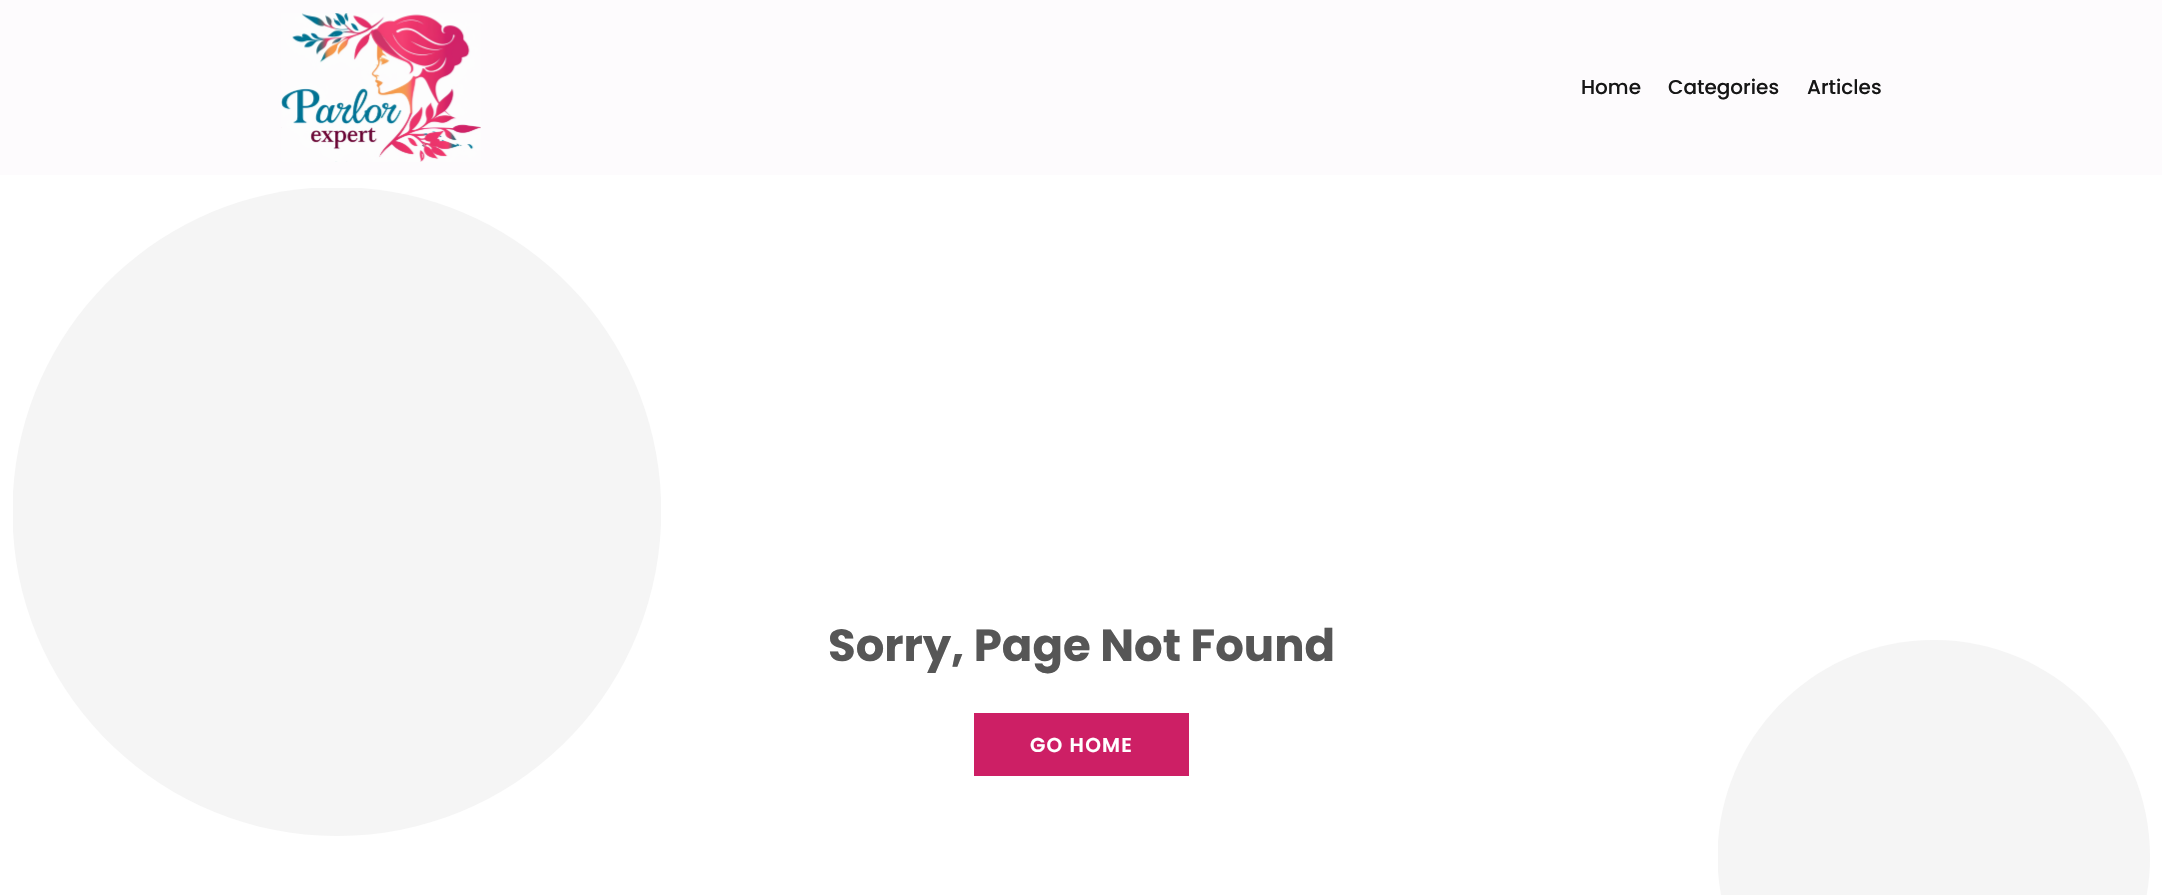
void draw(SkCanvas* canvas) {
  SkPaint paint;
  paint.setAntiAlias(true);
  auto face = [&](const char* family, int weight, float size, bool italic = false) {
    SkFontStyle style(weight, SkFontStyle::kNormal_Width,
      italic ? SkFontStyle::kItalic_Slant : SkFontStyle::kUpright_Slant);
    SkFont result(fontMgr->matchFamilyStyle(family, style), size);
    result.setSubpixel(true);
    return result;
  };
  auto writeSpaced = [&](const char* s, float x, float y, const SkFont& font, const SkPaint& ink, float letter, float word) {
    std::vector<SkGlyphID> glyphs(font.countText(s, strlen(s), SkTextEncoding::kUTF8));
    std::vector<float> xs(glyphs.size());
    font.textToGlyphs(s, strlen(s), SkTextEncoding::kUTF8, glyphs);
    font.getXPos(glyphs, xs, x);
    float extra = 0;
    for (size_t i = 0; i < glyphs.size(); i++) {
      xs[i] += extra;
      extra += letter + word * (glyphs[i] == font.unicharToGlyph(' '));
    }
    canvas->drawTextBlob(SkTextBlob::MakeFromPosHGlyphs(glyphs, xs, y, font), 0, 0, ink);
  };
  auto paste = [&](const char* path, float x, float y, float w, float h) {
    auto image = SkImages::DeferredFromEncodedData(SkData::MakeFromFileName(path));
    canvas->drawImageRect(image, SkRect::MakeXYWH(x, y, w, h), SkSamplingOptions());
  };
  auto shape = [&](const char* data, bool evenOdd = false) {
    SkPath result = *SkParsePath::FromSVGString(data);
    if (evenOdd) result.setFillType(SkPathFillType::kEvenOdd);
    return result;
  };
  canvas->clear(0xffffffff);
  paint.setColor(0xfffdfbfd);
  canvas->drawRect(SkRect::MakeXYWH(0, 0, 2162, 175), paint);
  paste("img/1.png", 281, 13, 200, 149);
  paint.setColor(0xfff5f5f5);
  canvas->drawPath(shape("M13 493C22 331 151 200 312 188H361C525 200 655 334 661 499V524C654 698 512 836 337 836C164 836 22 700 13 530Z"), paint);
  paint.setColor(0xffcd1f65);
  canvas->drawRect(SkRect::MakeXYWH(974, 713, 215, 63), paint);
  paint.setColor(0xfff5f5f5);
  canvas->drawPath(shape("M1934 640C2053 640 2150 737 2150 857C2150 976 2053 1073 1934 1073C1819 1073 1726 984 1718 871V842C1726 729 1819 640 1934 640Z"), paint);
  auto f0 = face("Poppins", 500, 20);
  paint.setColor(0xff161616);
  {
    const struct { const char* s; float x, y; } items[] = {
      {"Home", 1581, 94},
      {"Categories", 1668, 94},
      {"Articles", 1807, 94},
    };
    for (auto [s, x, y] : items) {
      canvas->drawString(s, x, y, f0, paint);
    }
  }
  auto f1 = face("Poppins", 700, 45);
  paint.setColor(0xff565656);
  canvas->drawString("Sorry, Page Not Found", 828, 661, f1, paint);
  auto f2 = face("Poppins", 600, 20);
  paint.setColor(0xffffffff);
  writeSpaced("GO HOME", 1030, 752, f2, paint, 1.25f, 0);
}
